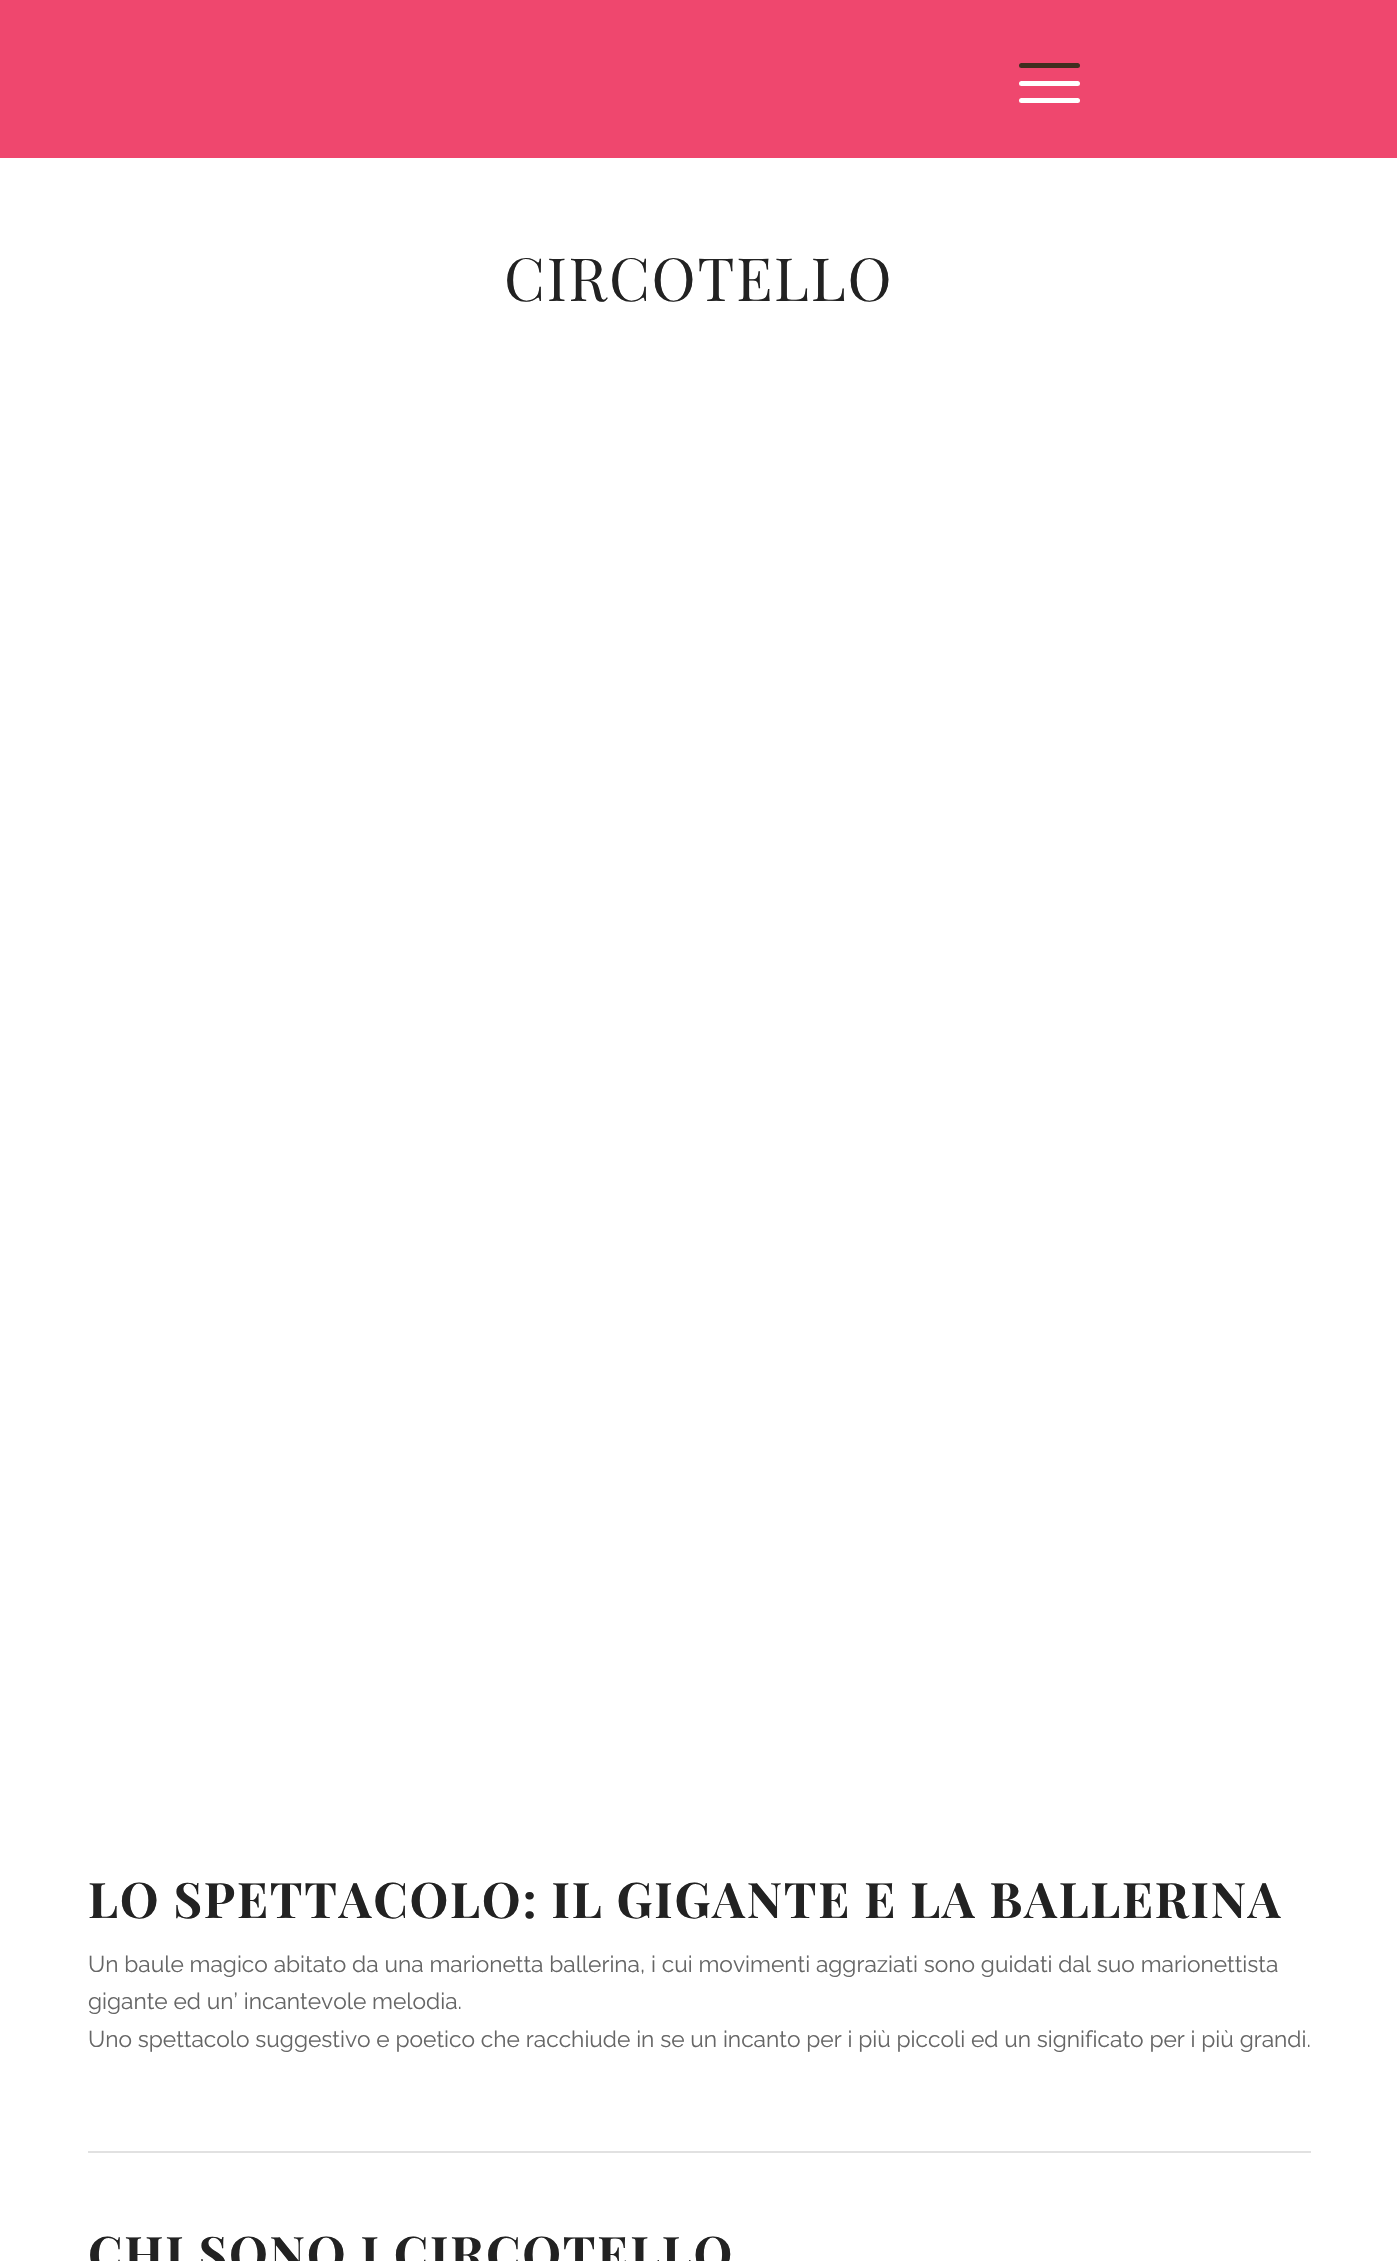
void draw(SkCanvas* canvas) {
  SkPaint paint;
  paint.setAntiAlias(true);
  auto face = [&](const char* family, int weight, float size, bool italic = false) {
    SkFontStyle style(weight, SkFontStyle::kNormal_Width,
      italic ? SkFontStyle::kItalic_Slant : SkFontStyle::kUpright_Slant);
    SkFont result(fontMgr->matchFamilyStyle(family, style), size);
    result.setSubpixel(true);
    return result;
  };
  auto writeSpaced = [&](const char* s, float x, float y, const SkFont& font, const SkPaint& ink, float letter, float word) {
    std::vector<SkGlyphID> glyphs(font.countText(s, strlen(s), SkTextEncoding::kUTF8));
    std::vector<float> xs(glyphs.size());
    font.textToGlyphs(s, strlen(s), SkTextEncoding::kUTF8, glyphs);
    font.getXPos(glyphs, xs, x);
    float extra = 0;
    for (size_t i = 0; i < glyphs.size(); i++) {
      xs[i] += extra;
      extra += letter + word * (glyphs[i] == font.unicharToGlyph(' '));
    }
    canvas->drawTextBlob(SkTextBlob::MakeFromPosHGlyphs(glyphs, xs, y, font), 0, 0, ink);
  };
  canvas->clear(0xffffffff);
  paint.setColor(0xffef476e);
  canvas->drawRect(SkRect::MakeXYWH(0, 0, 1397, 158), paint);
  paint.setColor(0xffffffff);
  canvas->drawRoundRect(SkRect::MakeXYWH(1019, 81, 61, 5), 2.5f, 2.5f, paint);
  paint.setColor(0xff402e1f);
  canvas->drawRoundRect(SkRect::MakeXYWH(1019, 63, 61, 5), 2.5f, 2.5f, paint);
  paint.setColor(0xffffffff);
  canvas->drawRoundRect(SkRect::MakeXYWH(1019, 98, 61, 5), 2.5f, 2.5f, paint);
  paint.setColor(0xffe1e1e1);
  canvas->drawRect(SkRect::MakeXYWH(88, 2151, 1223, 2), paint);
  auto f0 = face("Playfair Display", 400, 59.5f);
  paint.setColor(0xff222222);
  writeSpaced("CIRCOTELLO", 504, 301, f0, paint, 1.75f, 0);
  auto f1 = face("Playfair Display", 700, 49);
  writeSpaced("LO SPETTACOLO: IL GIGANTE E LA BALLERINA", 88, 1918, f1, paint, 1.75f, 0);
  auto f2 = face("Raleway", 100, 22.75f);
  paint.setColor(0xff666666);
  {
    const struct { const char* s; float x, y; } items[] = {
      {"Un baule magico abitato da una marionetta ballerina, i cui movimenti aggraziati sono guidati dal suo marionettista", 88, 1972},
      {"gigante ed un’ incantevole melodia.", 88, 2009},
      {"Uno spettacolo suggestivo e poetico che racchiude in se un incanto per i più piccoli ed un significato per i più grandi.", 88, 2047},
    };
    for (auto [s, x, y] : items) {
      canvas->drawString(s, x, y, f2, paint);
    }
  }
  paint.setColor(0xff222222);
  writeSpaced("CHI SONO I CIRCOTELLO", 88, 2272, f1, paint, 1.75f, 0);
}
